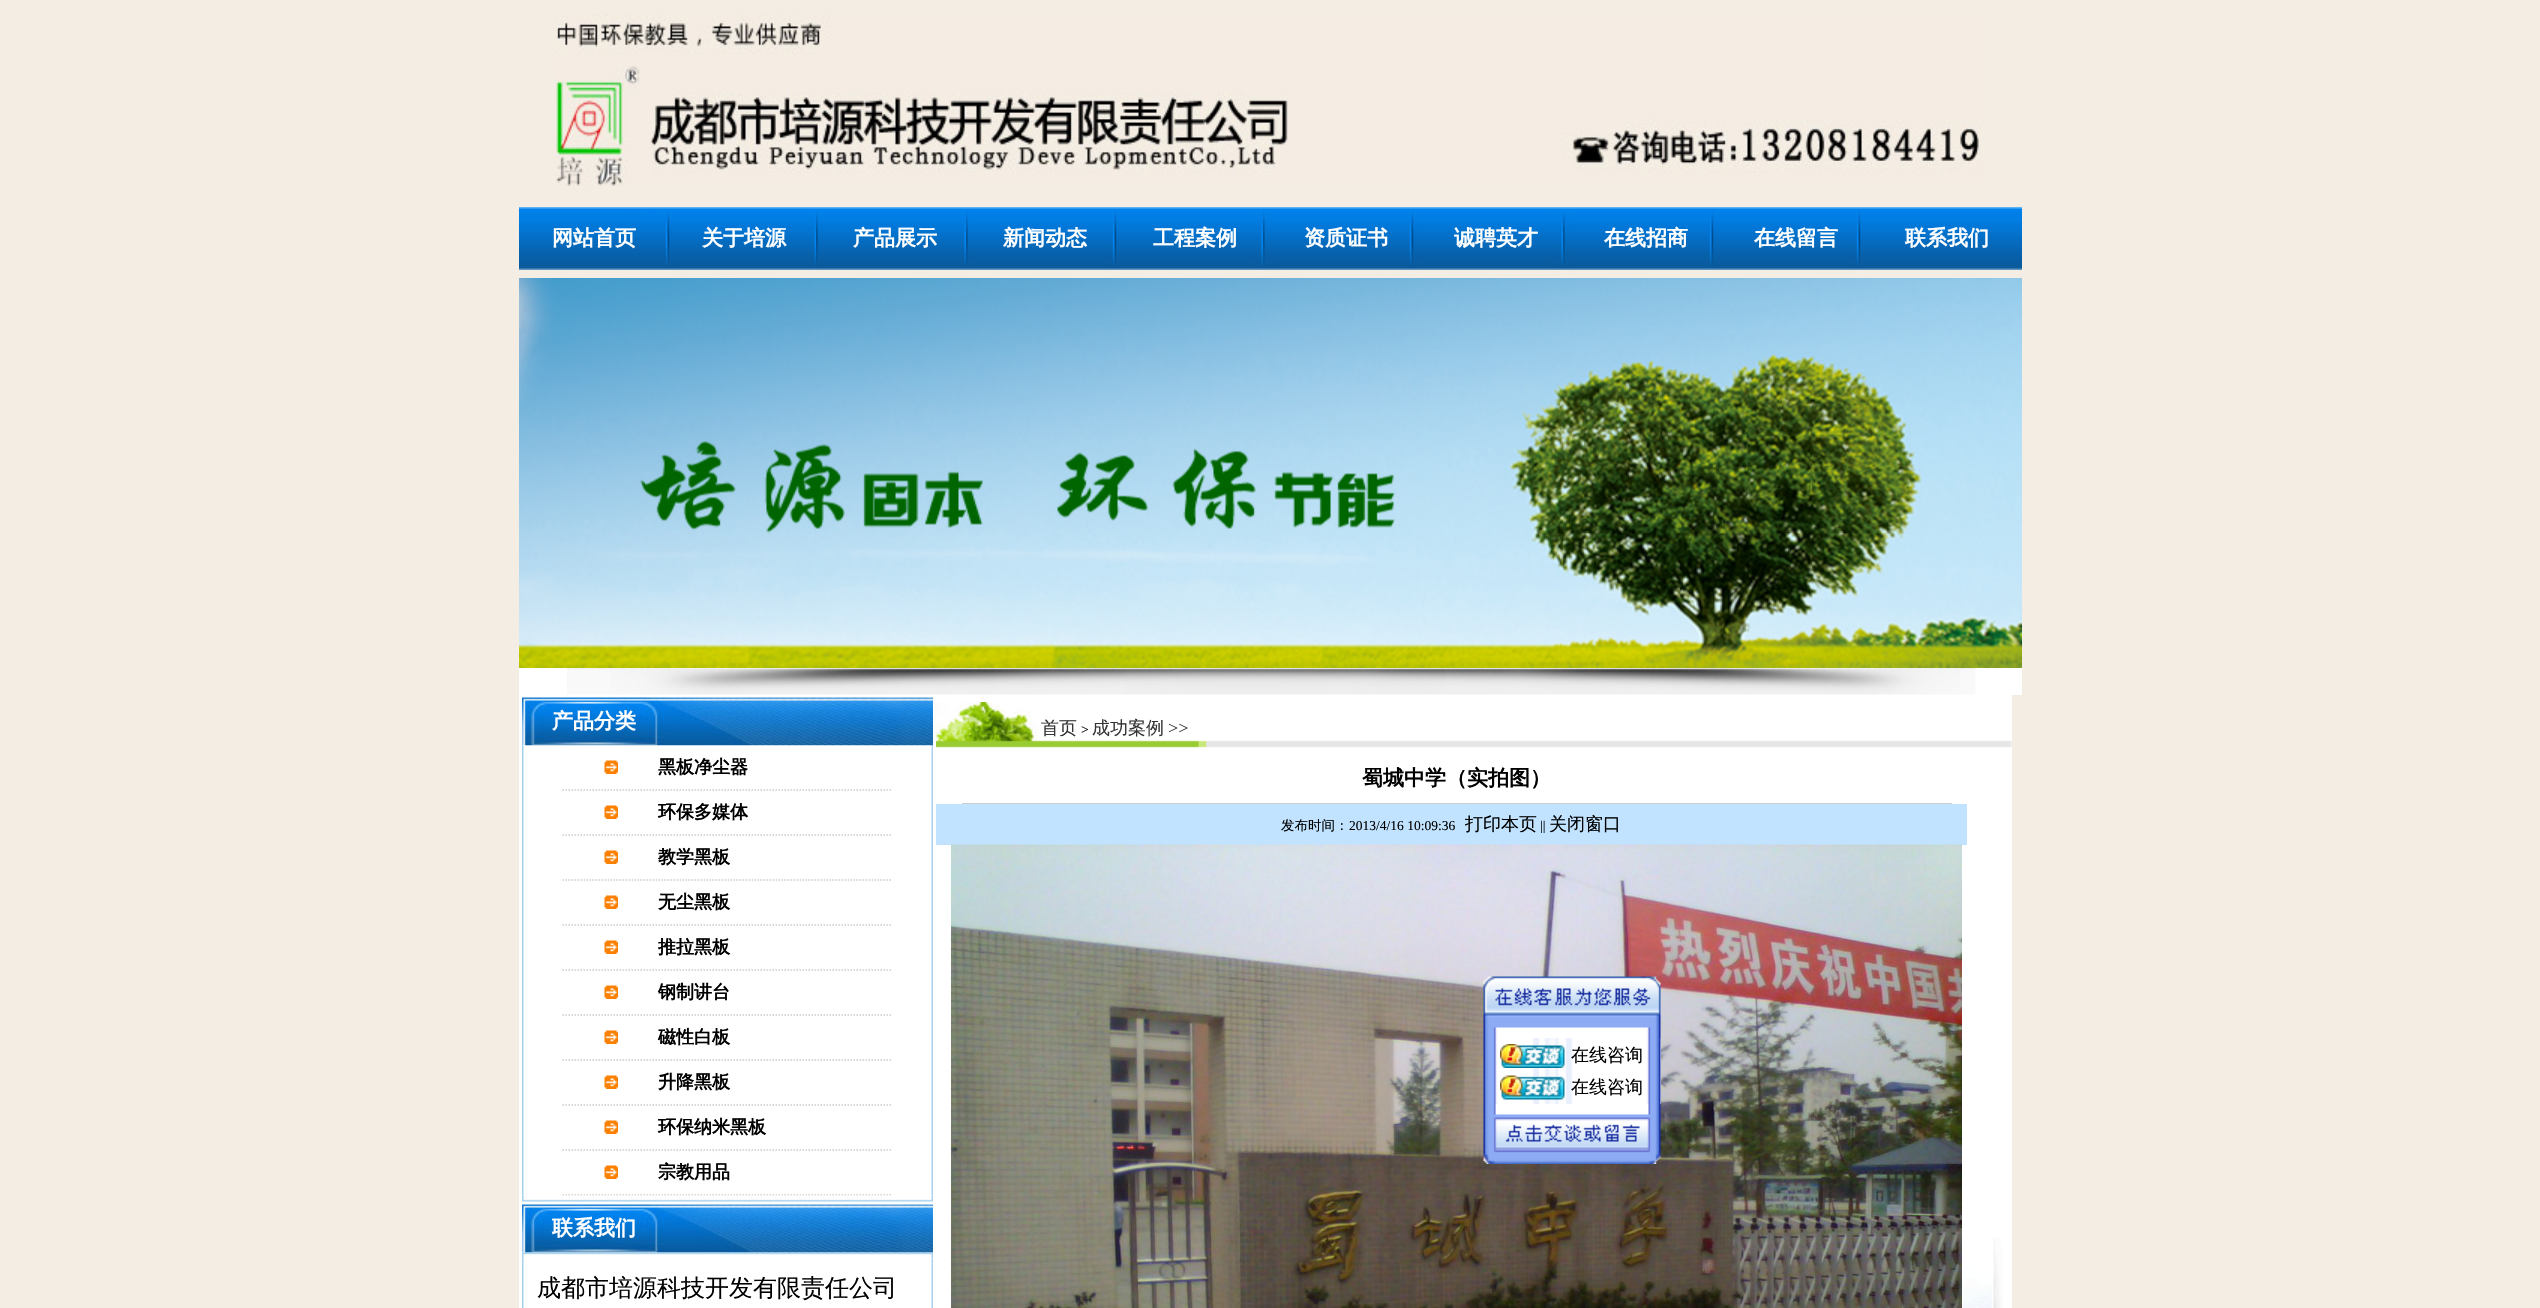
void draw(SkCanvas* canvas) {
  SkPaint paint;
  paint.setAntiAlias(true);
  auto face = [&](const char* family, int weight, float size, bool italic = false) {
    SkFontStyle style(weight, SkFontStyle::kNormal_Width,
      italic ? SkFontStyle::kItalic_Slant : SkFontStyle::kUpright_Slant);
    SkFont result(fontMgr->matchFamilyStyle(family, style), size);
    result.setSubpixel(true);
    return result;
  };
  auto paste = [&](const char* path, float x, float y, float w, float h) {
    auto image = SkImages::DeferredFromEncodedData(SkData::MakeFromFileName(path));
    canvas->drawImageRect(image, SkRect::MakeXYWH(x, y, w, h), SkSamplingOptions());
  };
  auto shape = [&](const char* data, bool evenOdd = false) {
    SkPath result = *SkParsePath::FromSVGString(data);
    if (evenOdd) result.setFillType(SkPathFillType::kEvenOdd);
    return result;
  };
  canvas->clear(0xfff4ede3);
  paste("img/1.png", 555, 14, 1428, 172);
  paste("img/2.png", 519, 207, 1503, 63);
  paste("img/3.png", 519, 278, 1503, 390);
  paint.setColor(0xffffffff);
  canvas->drawRect(SkRect::MakeXYWH(519, 668, 1503, 27), paint);
  paste("img/4.png", 567, 668, 1409, 27);
  canvas->drawRect(SkRect::MakeXYWH(519, 695, 1493, 613), paint);
  paste("img/5.png", 522, 697, 411, 49);
  paste("img/6.png", 522, 745, 411, 451);
  paint.setStroke(true);
  paint.setStrokeWidth(1.5f);
  paint.setColor(0xffcccccc);
  paint.setPathEffect(SkDashPathEffect::Make({{1.5f, 1.5f}}, 0));
  canvas->drawPath(shape("M562.5 790H658.5"), paint);
  paint.setPathEffect(nullptr);
  paste("img/7.png", 604, 760, 14, 14);
  paint.setPathEffect(SkDashPathEffect::Make({{1.5f, 1.5f}}, 0));
  canvas->drawPath(shape("M658.5 790H892.5"), paint);
  paint.setPathEffect(nullptr);
  paint.setPathEffect(SkDashPathEffect::Make({{1.5f, 1.5f}}, 0));
  canvas->drawPath(shape("M562.5 835H658.5"), paint);
  paint.setPathEffect(nullptr);
  paste("img/7.png", 604, 805, 14, 14);
  paint.setPathEffect(SkDashPathEffect::Make({{1.5f, 1.5f}}, 0));
  canvas->drawPath(shape("M658.5 835H892.5"), paint);
  paint.setPathEffect(nullptr);
  paint.setPathEffect(SkDashPathEffect::Make({{1.5f, 1.5f}}, 0));
  canvas->drawPath(shape("M562.5 880H658.5"), paint);
  paint.setPathEffect(nullptr);
  paste("img/7.png", 604, 850, 14, 14);
  paint.setPathEffect(SkDashPathEffect::Make({{1.5f, 1.5f}}, 0));
  canvas->drawPath(shape("M658.5 880H892.5"), paint);
  paint.setPathEffect(nullptr);
  paint.setPathEffect(SkDashPathEffect::Make({{1.5f, 1.5f}}, 0));
  canvas->drawPath(shape("M562.5 925H658.5"), paint);
  paint.setPathEffect(nullptr);
  paste("img/7.png", 604, 895, 14, 14);
  paint.setPathEffect(SkDashPathEffect::Make({{1.5f, 1.5f}}, 0));
  canvas->drawPath(shape("M658.5 925H892.5"), paint);
  paint.setPathEffect(nullptr);
  paint.setPathEffect(SkDashPathEffect::Make({{1.5f, 1.5f}}, 0));
  canvas->drawPath(shape("M562.5 970H658.5"), paint);
  paint.setPathEffect(nullptr);
  paste("img/7.png", 604, 940, 14, 14);
  paint.setPathEffect(SkDashPathEffect::Make({{1.5f, 1.5f}}, 0));
  canvas->drawPath(shape("M658.5 970H892.5"), paint);
  paint.setPathEffect(nullptr);
  paint.setPathEffect(SkDashPathEffect::Make({{1.5f, 1.5f}}, 0));
  canvas->drawPath(shape("M562.5 1015H658.5"), paint);
  paint.setPathEffect(nullptr);
  paste("img/7.png", 604, 985, 14, 14);
  paint.setPathEffect(SkDashPathEffect::Make({{1.5f, 1.5f}}, 0));
  canvas->drawPath(shape("M658.5 1015H892.5"), paint);
  paint.setPathEffect(nullptr);
  paint.setPathEffect(SkDashPathEffect::Make({{1.5f, 1.5f}}, 0));
  canvas->drawPath(shape("M562.5 1060H658.5"), paint);
  paint.setPathEffect(nullptr);
  paste("img/7.png", 604, 1030, 14, 14);
  paint.setPathEffect(SkDashPathEffect::Make({{1.5f, 1.5f}}, 0));
  canvas->drawPath(shape("M658.5 1060H892.5"), paint);
  paint.setPathEffect(nullptr);
  paint.setPathEffect(SkDashPathEffect::Make({{1.5f, 1.5f}}, 0));
  canvas->drawPath(shape("M562.5 1105H658.5"), paint);
  paint.setPathEffect(nullptr);
  paste("img/7.png", 604, 1075, 14, 14);
  paint.setPathEffect(SkDashPathEffect::Make({{1.5f, 1.5f}}, 0));
  canvas->drawPath(shape("M658.5 1105H892.5"), paint);
  paint.setPathEffect(nullptr);
  paint.setPathEffect(SkDashPathEffect::Make({{1.5f, 1.5f}}, 0));
  canvas->drawPath(shape("M562.5 1150H658.5"), paint);
  paint.setPathEffect(nullptr);
  paste("img/7.png", 604, 1120, 14, 14);
  paint.setPathEffect(SkDashPathEffect::Make({{1.5f, 1.5f}}, 0));
  canvas->drawPath(shape("M658.5 1150H892.5"), paint);
  paint.setPathEffect(nullptr);
  paint.setPathEffect(SkDashPathEffect::Make({{1.5f, 1.5f}}, 0));
  canvas->drawPath(shape("M562.5 1195H658.5"), paint);
  paint.setPathEffect(nullptr);
  paste("img/7.png", 604, 1165, 14, 14);
  paint.setPathEffect(SkDashPathEffect::Make({{1.5f, 1.5f}}, 0));
  canvas->drawPath(shape("M658.5 1195H892.5"), paint);
  paint.setPathEffect(nullptr);
  paste("img/8.png", 522, 1195, 411, 7);
  paste("img/5.png", 522, 1204, 411, 49);
  paste("img/10.png", 522, 1258, 411, 50);
  paste("img/9.png", 522, 1252, 411, 7);
  paste("img/11.png", 936, 702, 1076, 46);
  paste("img/12.png", 1962, 1237, 41, 71);
  paint.setStroke(false);
  canvas->drawRect(SkRect::MakeXYWH(962, 803, 990, 1), paint);
  paint.setColor(0xffc1e3ff);
  canvas->drawRect(SkRect::MakeXYWH(936, 804, 1031, 41), paint);
  paste("img/13.png", 951, 844, 1011, 464);
  paste("img/14.png", 1483, 976, 178, 62);
  paint.setColor(0xffffffff);
  canvas->drawRect(SkRect::MakeXYWH(1660, 1038, 1, 66), paint);
  paste("img/15.png", 1483, 1038, 178, 66);
  paste("img/16.png", 1500, 1044, 65, 24);
  paste("img/17.png", 1500, 1075, 65, 25);
  paste("img/18.png", 1483, 1104, 178, 60);
  auto f0 = face("WenQuanYi Zen Hei", 700, 21);
  {
    const struct { const char* s; float x, y; } items[] = {
      {"网站首页", 552, 245},
      {"关于培源", 702, 245},
      {"产品展示", 853, 245},
      {"新闻动态", 1003, 245},
      {"工程案例", 1153, 245},
      {"资质证书", 1304, 245},
      {"诚聘英才", 1454, 245},
      {"在线招商", 1604, 245},
      {"在线留言", 1754, 245},
      {"联系我们", 1905, 245},
      {"产品分类", 552, 728},
    };
    for (auto [s, x, y] : items) {
      canvas->drawString(s, x, y, f0, paint);
    }
  }
  auto f1 = face("WenQuanYi Zen Hei", 700, 18);
  paint.setColor(0xff000000);
  {
    const struct { const char* s; float x, y; } items[] = {
      {"黑板净尘器", 658, 773},
      {"环保多媒体", 658, 818},
      {"教学黑板", 658, 863},
      {"无尘黑板", 658, 908},
      {"推拉黑板", 658, 953},
      {"钢制讲台", 658, 998},
      {"磁性白板", 658, 1043},
      {"升降黑板", 658, 1088},
      {"环保纳米黑板", 658, 1133},
      {"宗教用品", 658, 1178},
    };
    for (auto [s, x, y] : items) {
      canvas->drawString(s, x, y, f1, paint);
    }
  }
  paint.setColor(0xffffffff);
  canvas->drawString("联系我们", 552, 1235, f0, paint);
  auto f2 = face("WenQuanYi Zen Hei", 500, 24);
  paint.setColor(0xff000000);
  canvas->drawString("成都市培源科技开发有限责任公司", 537, 1296, f2, paint);
  auto f3 = face("WenQuanYi Zen Hei", 500, 18);
  paint.setColor(0xff333333);
  canvas->drawString("首页", 1041, 734, f3, paint);
  auto f4 = face("Liberation Serif", 400, 13.5f);
  paint.setColor(0xff000000);
  canvas->drawString(">", 1081, 734, f4, paint);
  paint.setColor(0xff333333);
  canvas->drawString("成功案例", 1092, 734, f3, paint);
  auto f5 = face("Liberation Serif", 400, 18);
  canvas->drawString(">>", 1168, 734, f5, paint);
  paint.setColor(0xff000000);
  canvas->drawString("蜀城中学（实拍图）", 1362, 785, f0, paint);
  auto f6 = face("WenQuanYi Zen Hei", 500, 13.5f);
  canvas->drawString("发布时间：", 1281, 830, f6, paint);
  canvas->drawString("2013/4/16 10:09:36", 1349, 830, f4, paint);
  canvas->drawString("打印本页", 1465, 830, f3, paint);
  canvas->drawString("||", 1540, 830, f4, paint);
  {
    const struct { const char* s; float x, y; } items[] = {
      {"关闭窗口", 1549, 830},
      {"在线咨询", 1571, 1061},
      {"在线咨询", 1571, 1093},
    };
    for (auto [s, x, y] : items) {
      canvas->drawString(s, x, y, f3, paint);
    }
  }
}
